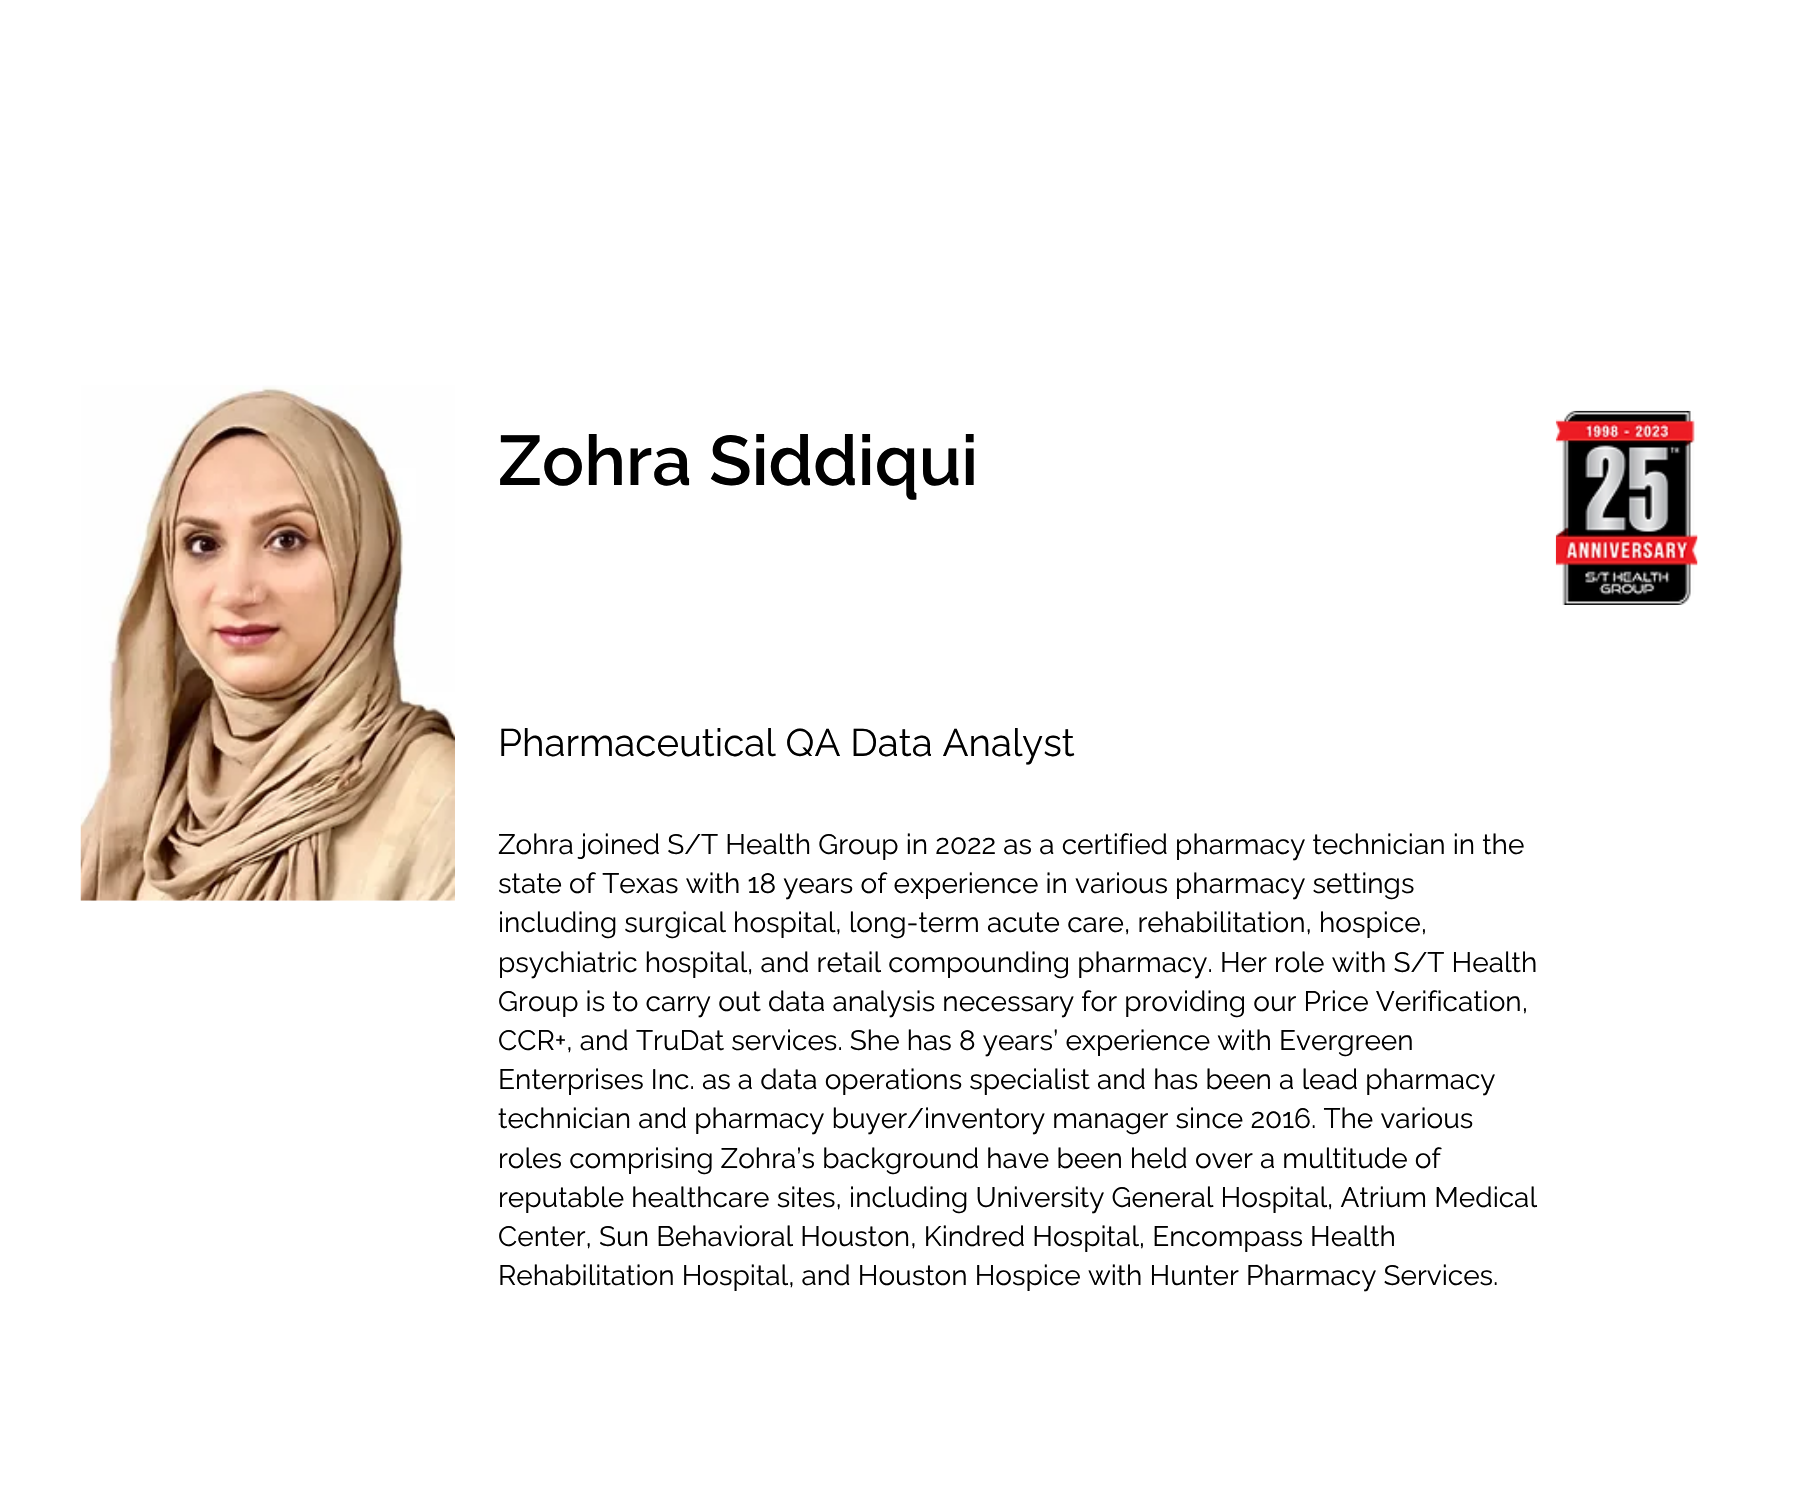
void draw(SkCanvas* canvas) {
  SkPaint paint;
  paint.setAntiAlias(true);
  auto face = [&](const char* family, int weight, float size, bool italic = false) {
    SkFontStyle style(weight, SkFontStyle::kNormal_Width,
      italic ? SkFontStyle::kItalic_Slant : SkFontStyle::kUpright_Slant);
    SkFont result(fontMgr->matchFamilyStyle(family, style), size);
    result.setSubpixel(true);
    return result;
  };
  auto paste = [&](const char* path, float x, float y, float w, float h) {
    auto image = SkImages::DeferredFromEncodedData(SkData::MakeFromFileName(path));
    canvas->drawImageRect(image, SkRect::MakeXYWH(x, y, w, h), SkSamplingOptions());
  };
  canvas->clear(0xffffffff);
  paste("img/1.png", 80, 385, 375, 516);
  paste("img/2.png", 1555, 410, 143, 195);
  auto f0 = face("Raleway", 600, 70);
  paint.setColor(0xff000000);
  canvas->drawString("Zohra Siddiqui", 498, 485, f0, paint);
  auto f1 = face("Raleway", 400, 38.5f);
  canvas->drawString("Pharmaceutical QA Data Analyst", 498, 756, f1, paint);
  auto f2 = face("Raleway", 400, 28);
  {
    const struct { const char* s; float x, y; } items[] = {
      {"Zohra joined S/T Health Group in 2022 as a certified pharmacy technician in the", 498, 854},
      {"state of Texas with 18 years of experience in various pharmacy settings", 498, 893},
      {"including surgical hospital, long-term acute care, rehabilitation, hospice,", 498, 932},
      {"psychiatric hospital, and retail compounding pharmacy. Her role with S/T Health", 498, 972},
      {"Group is to carry out data analysis necessary for providing our Price Verification,", 498, 1011},
      {"CCR+, and TruDat services. She has 8 years’ experience with Evergreen", 498, 1050},
      {"Enterprises Inc. as a data operations specialist and has been a lead pharmacy", 498, 1089},
      {"technician and pharmacy buyer/inventory manager since 2016. The various", 498, 1128},
      {"roles comprising Zohra’s background have been held over a multitude of", 498, 1168},
      {"reputable healthcare sites, including University General Hospital, Atrium Medical", 498, 1207},
      {"Center, Sun Behavioral Houston, Kindred Hospital, Encompass Health", 498, 1246},
      {"Rehabilitation Hospital, and Houston Hospice with Hunter Pharmacy Services.", 498, 1285},
    };
    for (auto [s, x, y] : items) {
      canvas->drawString(s, x, y, f2, paint);
    }
  }
}
